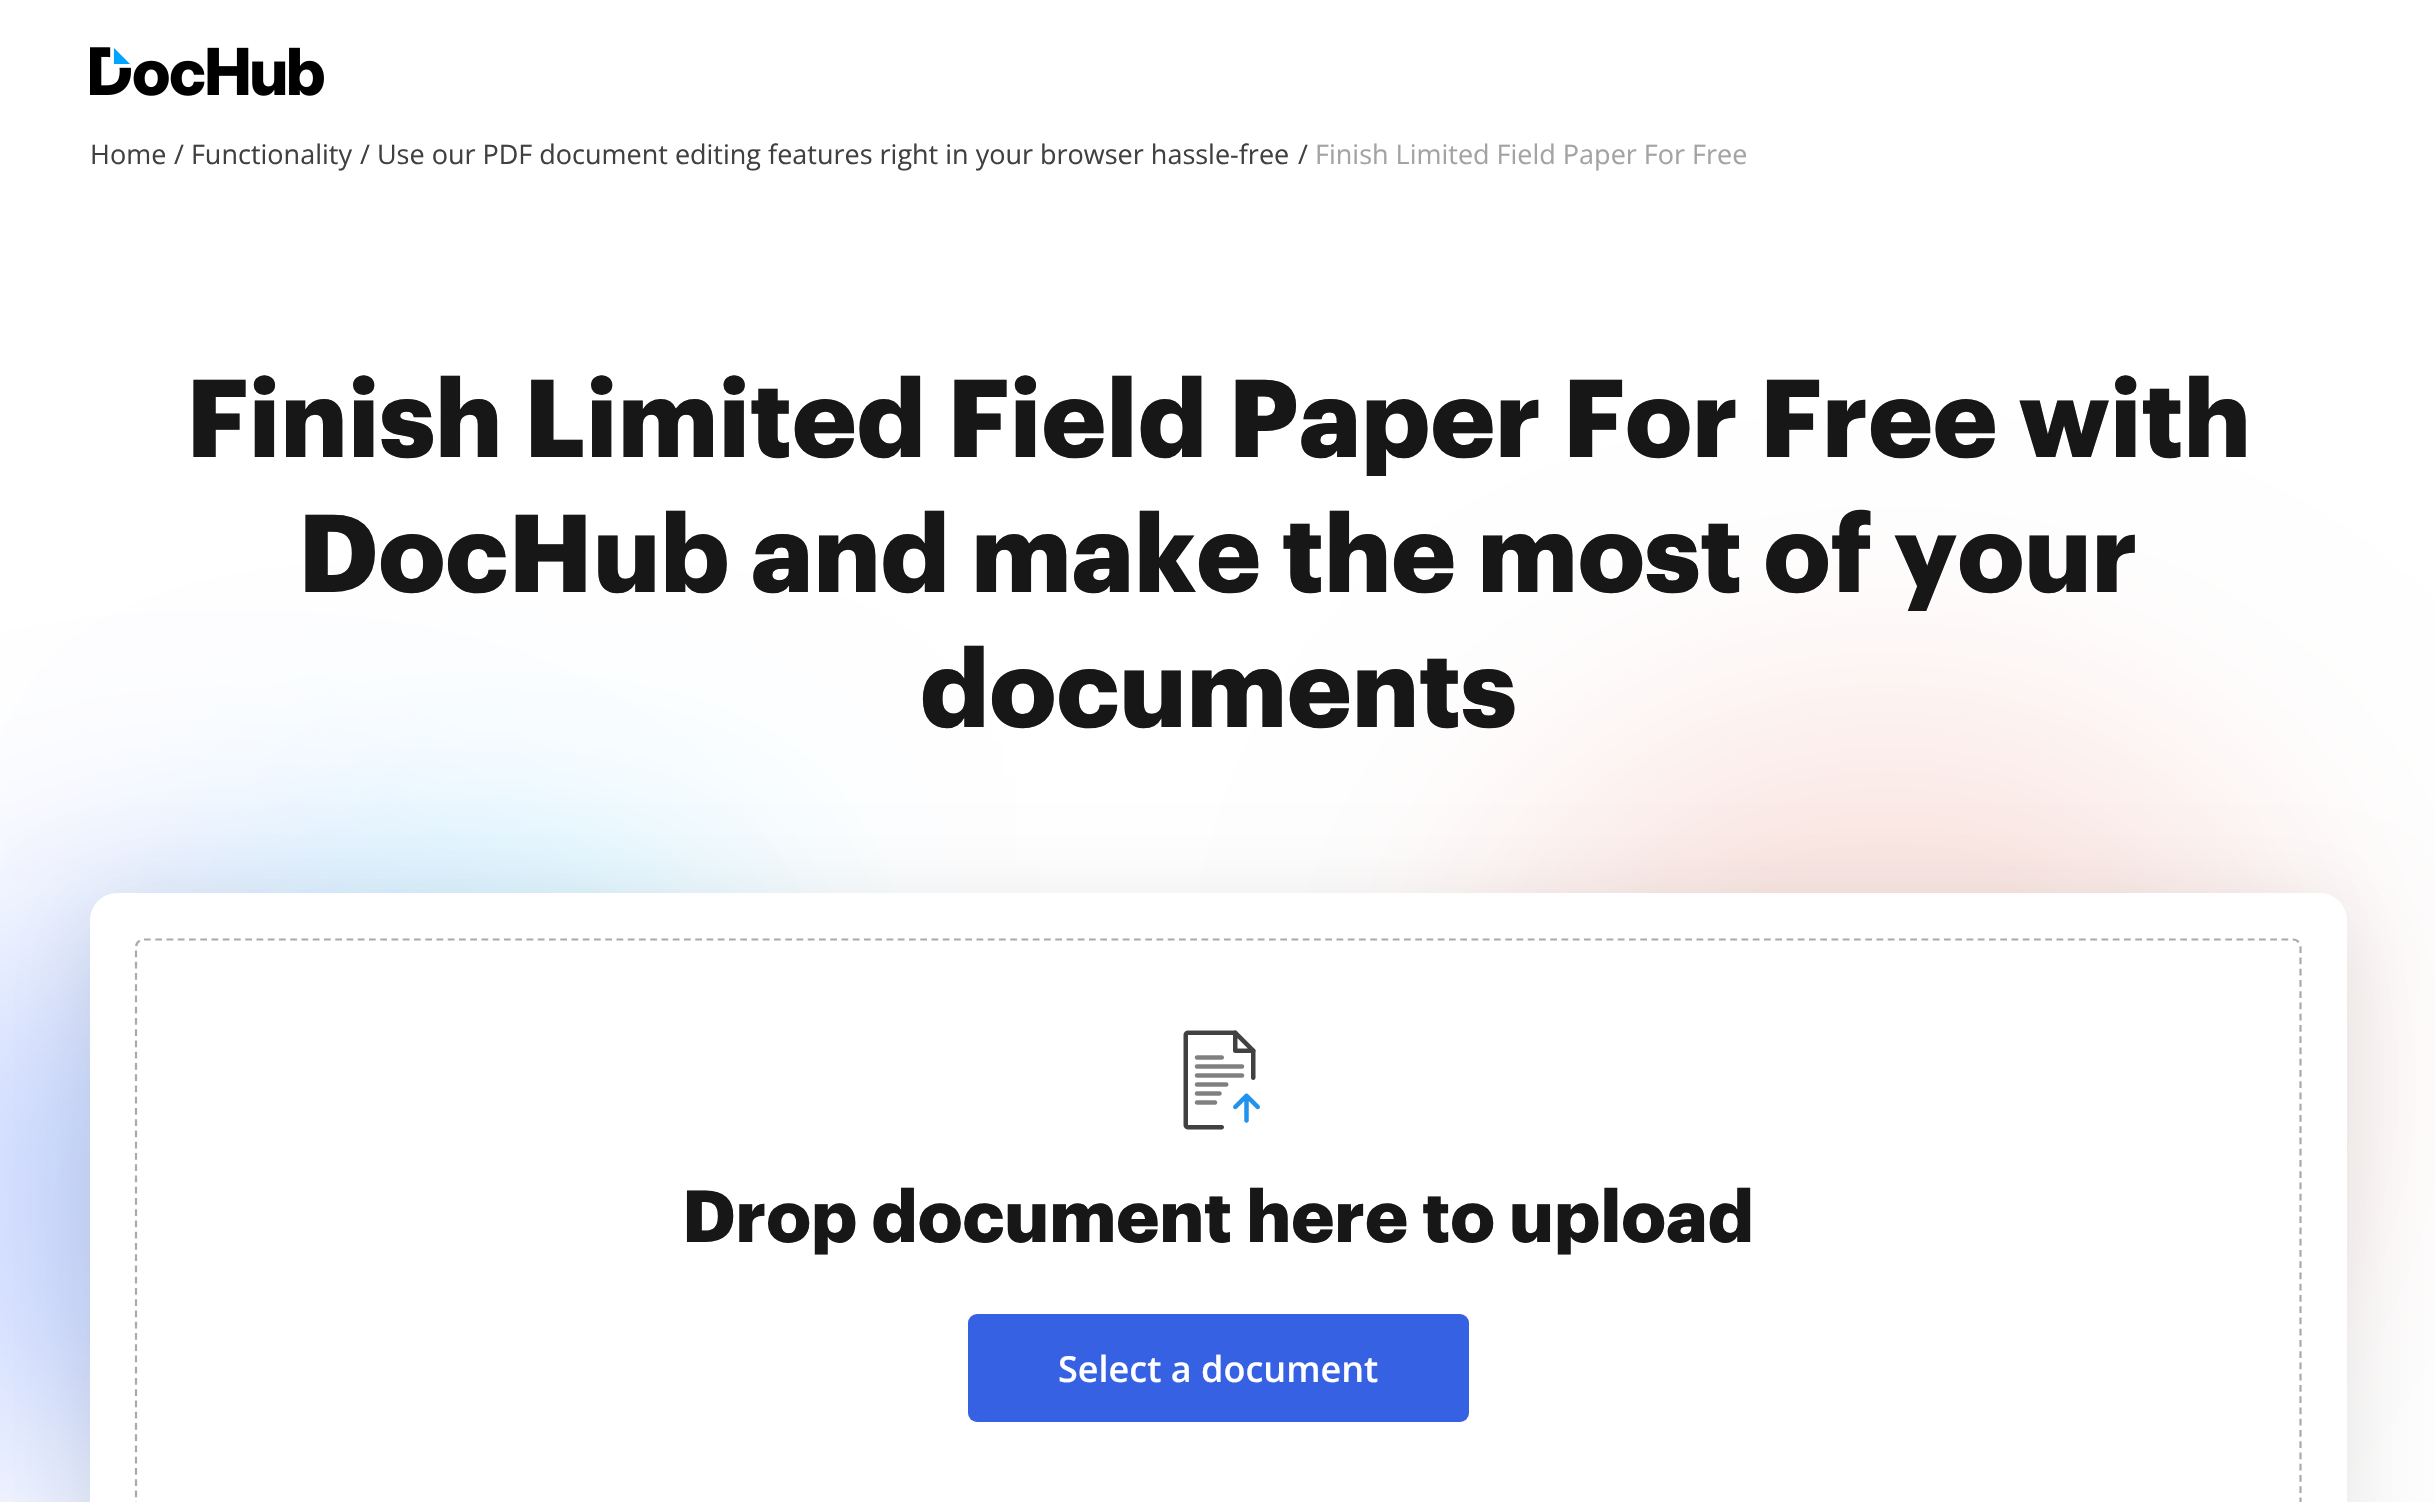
void draw(SkCanvas* canvas) {
  SkPaint paint;
  paint.setAntiAlias(true);
  auto face = [&](const char* family, int weight, float size, bool italic = false) {
    SkFontStyle style(weight, SkFontStyle::kNormal_Width,
      italic ? SkFontStyle::kItalic_Slant : SkFontStyle::kUpright_Slant);
    SkFont result(fontMgr->matchFamilyStyle(family, style), size);
    result.setSubpixel(true);
    return result;
  };
  auto paste = [&](const char* path, float x, float y, float w, float h) {
    auto image = SkImages::DeferredFromEncodedData(SkData::MakeFromFileName(path));
    canvas->drawImageRect(image, SkRect::MakeXYWH(x, y, w, h), SkSamplingOptions());
  };
  auto shape = [&](const char* data, bool evenOdd = false) {
    SkPath result = *SkParsePath::FromSVGString(data);
    if (evenOdd) result.setFillType(SkPathFillType::kEvenOdd);
    return result;
  };
  canvas->clear(0xffffffff);
  paste("img/1.png", 90, 47, 234, 49);
  paint.setColor(0xffc7d5ff);
  paint.setMaskFilter(SkMaskFilter::MakeBlur(kNormal_SkBlurStyle, 225));
  canvas->drawRoundRect(SkRect::MakeXYWH(-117, 909, 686, 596), 298, 298, paint);
  paint.setMaskFilter(nullptr);
  paint.setColor(0xffcaf1ff);
  paint.setMaskFilter(SkMaskFilter::MakeBlur(kNormal_SkBlurStyle, 225));
  canvas->drawRect(SkRect::MakeXYWH(261, 862, 473, 472), paint);
  paint.setMaskFilter(nullptr);
  paint.setColor(0xfffae3df);
  paint.setMaskFilter(SkMaskFilter::MakeBlur(kNormal_SkBlurStyle, 225));
  canvas->drawRoundRect(SkRect::MakeXYWH(1474, 713, 828, 738), 369, 369, paint);
  paint.setMaskFilter(nullptr);
  paint.setColor(0x1a000000);
  paint.setMaskFilter(SkMaskFilter::MakeBlur(kNormal_SkBlurStyle, 45));
  canvas->drawRoundRect(SkRect::MakeXYWH(90, 911, 2257, 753), 27, 27, paint);
  paint.setMaskFilter(nullptr);
  paint.setColor(0xffffffff);
  canvas->drawRoundRect(SkRect::MakeXYWH(90, 893, 2257, 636), 27, 27, paint);
  paint.setStroke(true);
  paint.setStrokeWidth(2.2f);
  paint.setColor(0xffaaaaaa);
  paint.setPathEffect(SkDashPathEffect::Make({{6.75f, 4.5f}}, 0));
  canvas->drawPath(shape("M144 939.5H2293C2297 939.5 2300.5 943 2300.5 947V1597.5C2300.5 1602 2297 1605.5 2293 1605.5H144C139.5 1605.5 136 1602 136 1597.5V947C136 943 139.5 939.5 144 939.5Z"), paint);
  paint.setPathEffect(nullptr);
  paste("img/2.png", 1183, 1030, 77, 100);
  paint.setStroke(false);
  paint.setColor(0xff3661e3);
  canvas->drawRoundRect(SkRect::MakeXYWH(968, 1314, 501, 108), 9, 9, paint);
  auto f0 = face("Open Sans", 400, 27);
  paint.setColor(0xff404040);
  {
    const struct { const char* s; float x, y; } items[] = {
      {"Home", 90, 164},
      {"/ Functionality", 174, 164},
      {"/ Use our PDF document editing features right in your browser hassle-free", 360, 164},
      {"/", 1298, 164},
    };
    for (auto [s, x, y] : items) {
      canvas->drawString(s, x, y, f0, paint);
    }
  }
  paint.setColor(0xffa3a3a3);
  canvas->drawString("Finish Limited Field Paper For Free", 1315, 164, f0, paint);
  auto f1 = face("Graphik", 700, 108);
  paint.setColor(0xff171717);
  {
    const struct { const char* s; float x, y; } items[] = {
      {"Finish Limited Field Paper For Free with", 186, 457},
      {"DocHub and make the most of your", 298, 592},
      {"documents", 920, 727},
    };
    for (auto [s, x, y] : items) {
      canvas->drawString(s, x, y, f1, paint);
    }
  }
  auto f2 = face("Graphik", 700, 72);
  canvas->drawString("Drop document here to upload", 682, 1242, f2, paint);
  auto f3 = face("Open Sans", 600, 36);
  paint.setColor(0xffffffff);
  canvas->drawString("Select a document", 1058, 1382, f3, paint);
}
